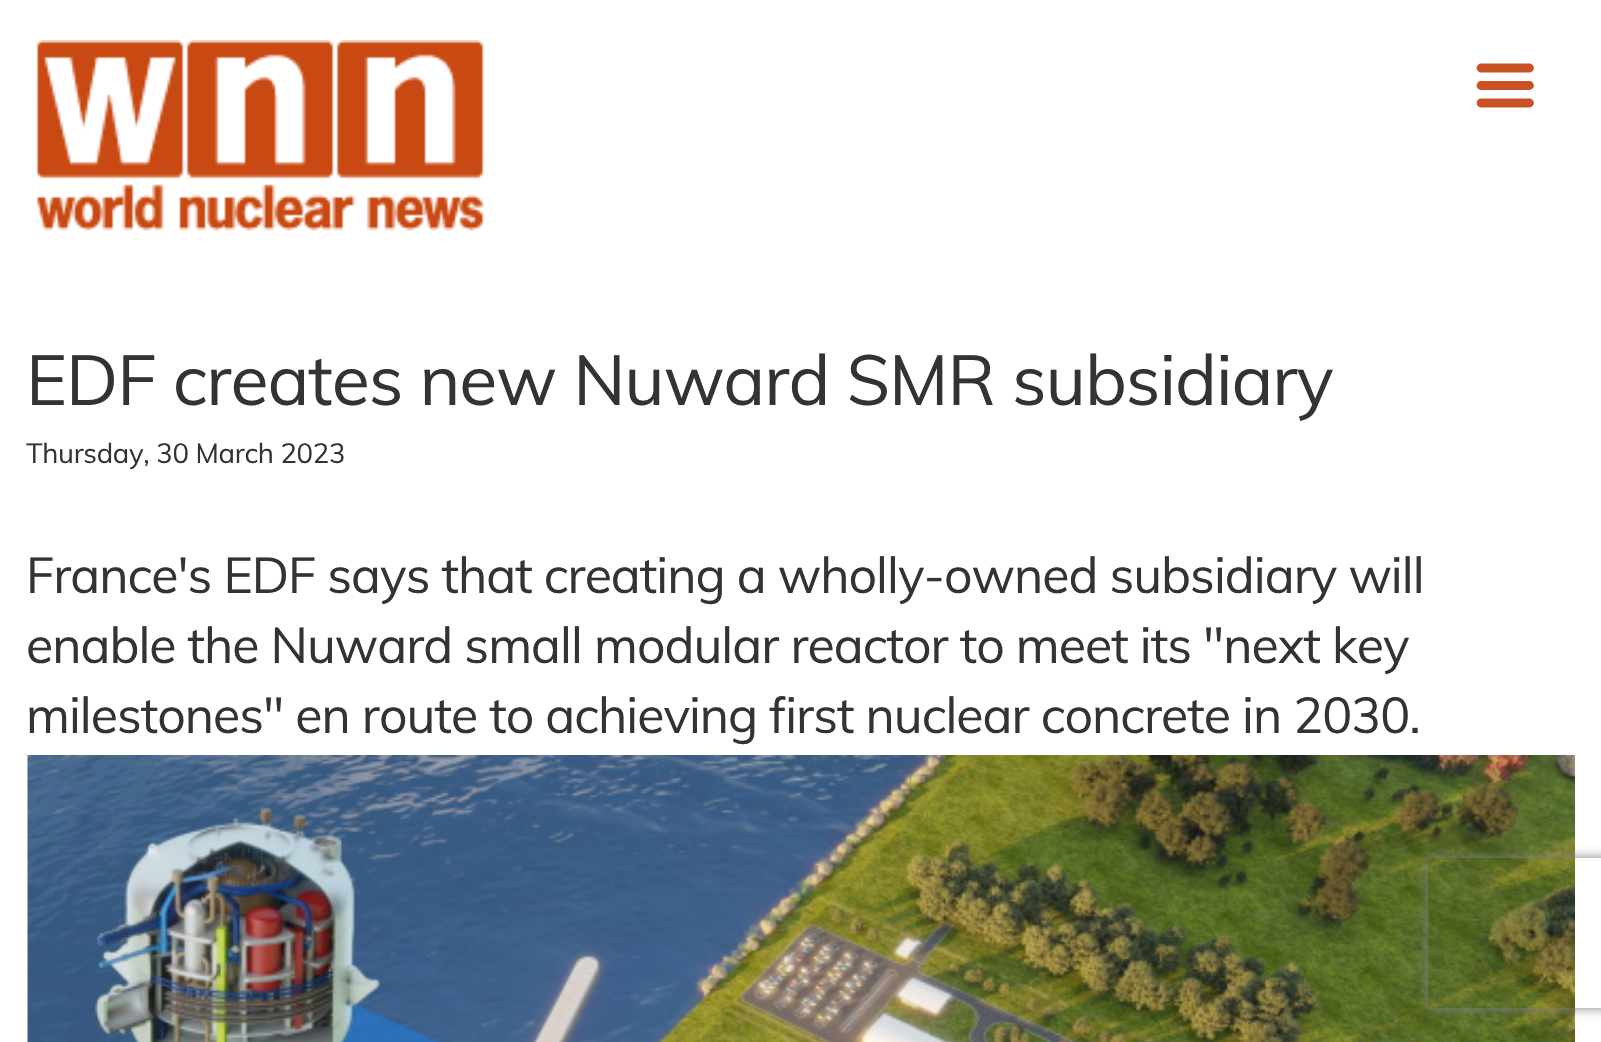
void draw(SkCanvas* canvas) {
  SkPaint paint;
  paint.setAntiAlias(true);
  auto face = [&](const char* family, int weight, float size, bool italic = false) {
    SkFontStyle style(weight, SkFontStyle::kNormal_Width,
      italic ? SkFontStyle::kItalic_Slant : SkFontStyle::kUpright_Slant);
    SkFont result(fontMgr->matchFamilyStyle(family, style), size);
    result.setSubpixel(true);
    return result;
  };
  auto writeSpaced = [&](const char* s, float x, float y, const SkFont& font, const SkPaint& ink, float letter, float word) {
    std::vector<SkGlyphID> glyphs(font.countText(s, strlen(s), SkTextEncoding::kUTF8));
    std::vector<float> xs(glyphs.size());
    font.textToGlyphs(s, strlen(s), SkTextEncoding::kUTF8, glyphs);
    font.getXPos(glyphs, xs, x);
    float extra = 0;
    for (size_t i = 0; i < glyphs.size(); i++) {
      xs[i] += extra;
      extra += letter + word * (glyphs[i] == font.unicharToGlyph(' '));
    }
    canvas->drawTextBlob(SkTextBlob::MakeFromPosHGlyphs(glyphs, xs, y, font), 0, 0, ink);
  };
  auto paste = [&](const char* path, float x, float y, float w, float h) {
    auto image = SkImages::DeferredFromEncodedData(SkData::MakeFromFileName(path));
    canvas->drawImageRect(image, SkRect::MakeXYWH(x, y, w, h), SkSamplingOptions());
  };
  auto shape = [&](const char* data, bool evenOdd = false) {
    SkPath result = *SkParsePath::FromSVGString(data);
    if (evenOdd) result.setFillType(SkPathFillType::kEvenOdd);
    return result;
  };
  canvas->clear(0xffffffff);
  paste("img/1.png", 36, 40, 448, 191);
  paint.setStroke(true);
  paint.setStrokeWidth(8.8f);
  paint.setStrokeCap(SkPaint::kRound_Cap);
  paint.setColor(0xffc95123);
  canvas->drawPath(shape("M1481 68H1529.5M1481 85.5H1529.5M1481 103H1529.5"), paint);
  paste("img/2.png", 27, 755, 1548, 287);
  canvas->save();
  canvas->clipPath(shape("M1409 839H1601V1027H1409ZM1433 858H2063C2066 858 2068 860 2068 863V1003C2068 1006 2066 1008 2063 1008H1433C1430 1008 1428 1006 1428 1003V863C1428 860 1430 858 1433 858Z", true), true);
  paint.setStroke(false);
  paint.setColor(0xff808080);
  paint.setMaskFilter(SkMaskFilter::MakeBlur(kNormal_SkBlurStyle, 6));
  canvas->drawRoundRect(SkRect::MakeXYWH(1428, 858, 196, 150), 5, 5, paint);
  paint.setMaskFilter(nullptr);
  canvas->restore();
  auto f0 = face("Muli", 400, 70);
  paint.setColor(0xff333333);
  writeSpaced("EDF creates new Nuward SMR subsidiary", 26, 405, f0, paint, -1.1f, 0);
  auto f1 = face("Muli", 400, 27.5f);
  writeSpaced("Thursday, 30 March 2023", 26, 463, f1, paint, -0.3f, 0);
  auto f2 = face("Muli", 400, 50);
  {
    const struct { const char* s; float x, y; } items[] = {
      {"France's EDF says that creating a wholly-owned subsidiary will", 26, 593},
      {"enable the Nuward small modular reactor to meet its \"next key", 26, 663},
      {"milestones\" en route to achieving first nuclear concrete in 2030.", 26, 733},
    };
    for (auto [s, x, y] : items) {
      writeSpaced(s, x, y, f2, paint, -1, 0);
    }
  }
}
